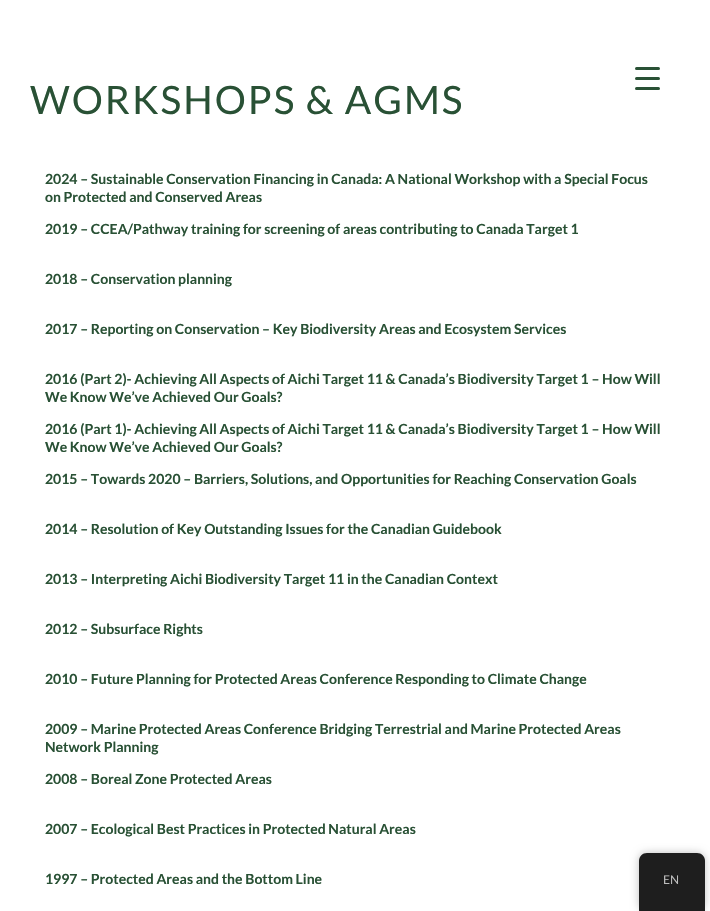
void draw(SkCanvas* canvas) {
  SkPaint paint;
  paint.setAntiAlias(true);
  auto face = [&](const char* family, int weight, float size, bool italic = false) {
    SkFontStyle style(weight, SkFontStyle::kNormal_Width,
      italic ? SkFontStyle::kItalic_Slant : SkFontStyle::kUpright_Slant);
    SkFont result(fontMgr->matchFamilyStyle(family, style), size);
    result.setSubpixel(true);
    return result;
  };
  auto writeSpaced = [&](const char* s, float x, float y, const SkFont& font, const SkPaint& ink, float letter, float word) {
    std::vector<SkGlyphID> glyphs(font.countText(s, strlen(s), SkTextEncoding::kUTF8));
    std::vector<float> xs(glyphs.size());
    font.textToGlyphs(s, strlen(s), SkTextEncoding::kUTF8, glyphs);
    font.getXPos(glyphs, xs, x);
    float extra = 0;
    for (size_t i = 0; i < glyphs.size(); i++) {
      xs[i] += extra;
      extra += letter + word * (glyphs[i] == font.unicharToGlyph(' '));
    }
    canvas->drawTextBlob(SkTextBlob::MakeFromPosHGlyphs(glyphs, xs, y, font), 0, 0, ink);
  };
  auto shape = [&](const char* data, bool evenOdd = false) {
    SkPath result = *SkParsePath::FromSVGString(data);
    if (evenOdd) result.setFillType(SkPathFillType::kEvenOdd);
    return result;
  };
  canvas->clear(0xffffffff);
  paint.setColor(0xff295135);
  canvas->drawRoundRect(SkRect::MakeXYWH(635, 77, 25, 3), 1.5f, 1.5f, paint);
  canvas->drawRoundRect(SkRect::MakeXYWH(635, 67, 25, 3), 1.5f, 1.5f, paint);
  canvas->drawRoundRect(SkRect::MakeXYWH(635, 87, 25, 3), 1.5f, 1.5f, paint);
  paint.setColor(0x40000000);
  paint.setMaskFilter(SkMaskFilter::MakeBlur(kNormal_SkBlurStyle, 4));
  canvas->drawRoundRect(SkRect::MakeXYWH(639, 853, 66, 58), 8, 8, paint);
  paint.setMaskFilter(nullptr);
  paint.setColor(0xff1e1e1e);
  canvas->drawPath(shape("M647 853H697C701.5 853 705 856.5 705 861V911H639V861C639 856.5 642.5 853 647 853Z"), paint);
  auto f0 = face("Lato", 400, 39);
  paint.setColor(0xff295135);
  writeSpaced("WORKSHOPS & AGMS", 30, 114, f0, paint, 2, 0);
  auto f1 = face("Lato", 700, 14);
  {
    const struct { const char* s; float x, y; } items[] = {
      {"2024 – Sustainable Conservation Financing in Canada: A National Workshop with a Special Focus", 45, 184},
      {"on Protected and Conserved Areas", 45, 202},
      {"2019 – CCEA/Pathway training for screening of areas contributing to Canada Target 1", 45, 234},
      {"2018 – Conservation planning", 45, 284},
      {"2017 – Reporting on Conservation – Key Biodiversity Areas and Ecosystem Services", 45, 334},
      {"2016 (Part 2)- Achieving All Aspects of Aichi Target 11 & Canada’s Biodiversity Target 1 – How Will", 45, 384},
      {"We Know We’ve Achieved Our Goals?", 45, 402},
      {"2016 (Part 1)- Achieving All Aspects of Aichi Target 11 & Canada’s Biodiversity Target 1 – How Will", 45, 434},
      {"We Know We’ve Achieved Our Goals?", 45, 452},
      {"2015 – Towards 2020 – Barriers, Solutions, and Opportunities for Reaching Conservation Goals", 45, 484},
      {"2014 – Resolution of Key Outstanding Issues for the Canadian Guidebook", 45, 534},
      {"2013 – Interpreting Aichi Biodiversity Target 11 in the Canadian Context", 45, 584},
      {"2012 – Subsurface Rights", 45, 634},
      {"2010 – Future Planning for Protected Areas Conference Responding to Climate Change", 45, 684},
      {"2009 – Marine Protected Areas Conference Bridging Terrestrial and Marine Protected Areas", 45, 734},
      {"Network Planning", 45, 752},
      {"2008 – Boreal Zone Protected Areas", 45, 784},
      {"2007 – Ecological Best Practices in Protected Natural Areas", 45, 834},
      {"1997 – Protected Areas and the Bottom Line", 45, 884},
    };
    for (auto [s, x, y] : items) {
      canvas->drawString(s, x, y, f1, paint);
    }
  }
  auto f2 = face("Lato", 400, 12);
  paint.setColor(0xffbdbdbd);
  canvas->drawString("EN", 663, 884, f2, paint);
}
